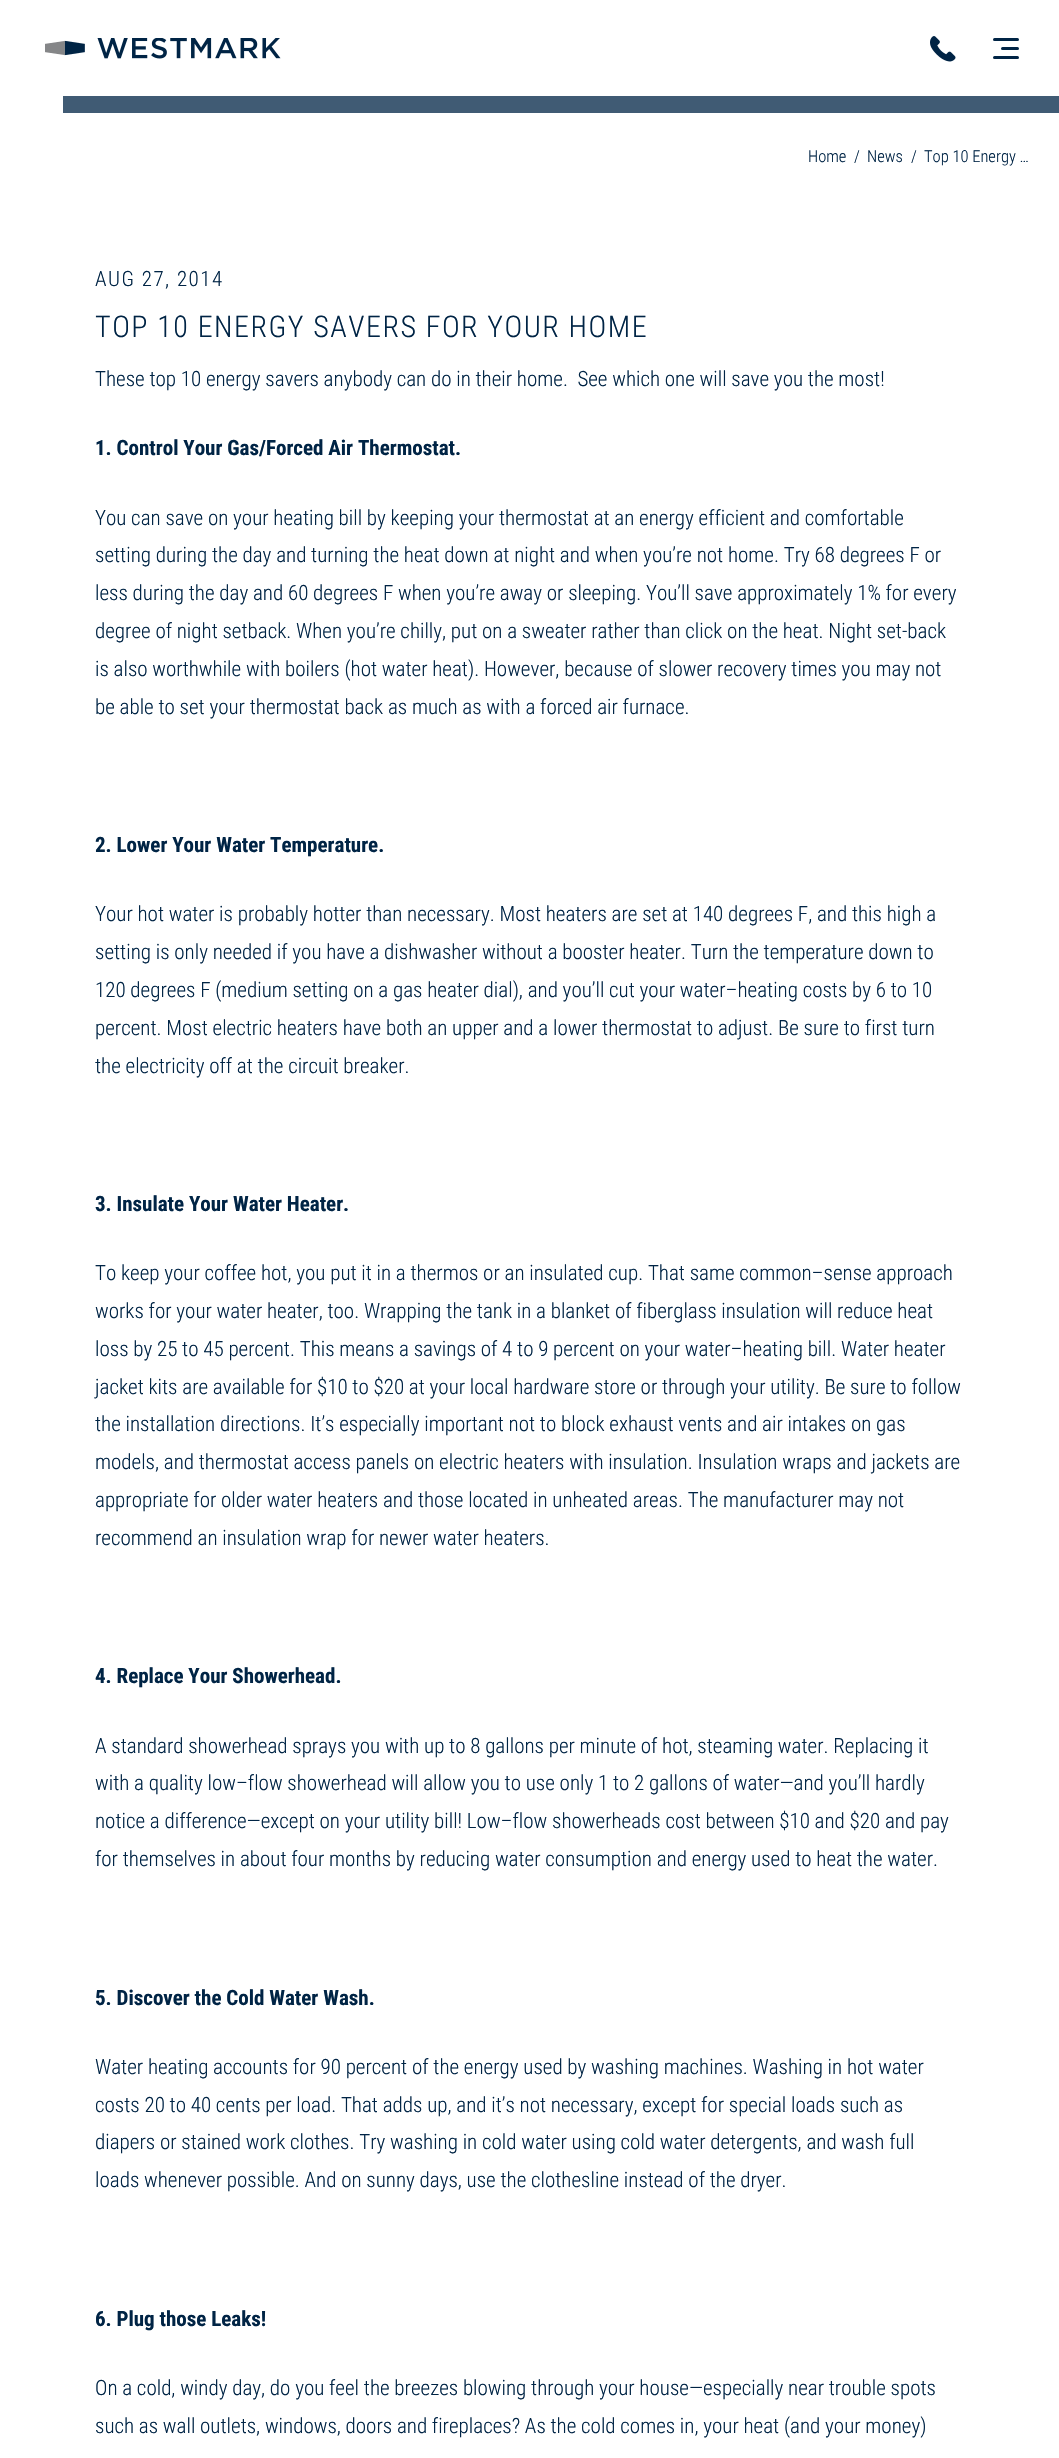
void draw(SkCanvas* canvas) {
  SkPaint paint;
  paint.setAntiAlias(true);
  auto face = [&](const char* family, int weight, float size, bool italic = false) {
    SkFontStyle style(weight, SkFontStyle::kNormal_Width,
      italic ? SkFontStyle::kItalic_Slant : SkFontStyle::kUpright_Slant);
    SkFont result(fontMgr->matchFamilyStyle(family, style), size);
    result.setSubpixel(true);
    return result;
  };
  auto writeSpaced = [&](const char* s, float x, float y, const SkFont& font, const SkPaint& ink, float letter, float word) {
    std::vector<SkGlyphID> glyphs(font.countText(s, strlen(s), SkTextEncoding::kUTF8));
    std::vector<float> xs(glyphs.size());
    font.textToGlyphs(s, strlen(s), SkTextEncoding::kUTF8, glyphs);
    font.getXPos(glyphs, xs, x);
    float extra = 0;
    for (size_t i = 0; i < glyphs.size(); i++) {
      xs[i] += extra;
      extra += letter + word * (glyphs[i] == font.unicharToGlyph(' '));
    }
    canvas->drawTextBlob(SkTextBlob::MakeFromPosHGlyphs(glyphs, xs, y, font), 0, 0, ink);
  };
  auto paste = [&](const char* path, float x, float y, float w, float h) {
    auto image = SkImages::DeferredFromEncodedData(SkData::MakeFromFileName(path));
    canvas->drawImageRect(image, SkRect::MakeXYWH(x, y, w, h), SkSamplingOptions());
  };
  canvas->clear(0xffffffff);
  paste("img/1.png", 45, 38, 236, 21);
  paste("img/2.png", 930, 36, 26, 26);
  paint.setColor(0xff002445);
  canvas->drawRoundRect(SkRect::MakeXYWH(993, 38, 26, 3), 1.5f, 1.5f, paint);
  canvas->drawRoundRect(SkRect::MakeXYWH(1001, 47, 18, 3), 1.5f, 1.5f, paint);
  canvas->drawRoundRect(SkRect::MakeXYWH(993, 56, 26, 3), 1.5f, 1.5f, paint);
  paint.setColor(0xff405b74);
  canvas->drawRect(SkRect::MakeXYWH(63, 96, 996, 17), paint);
  auto f0 = face("Roboto Condensed", 300, 16.5f);
  paint.setColor(0xff002445);
  {
    const struct { const char* s; float x, y; } items[] = {
      {"Home", 808, 162},
      {"/", 854, 162},
      {"News", 867, 162},
      {"/", 911, 162},
      {"Top 10 Energy …", 924, 162},
    };
    for (auto [s, x, y] : items) {
      canvas->drawString(s, x, y, f0, paint);
    }
  }
  auto f1 = face("Roboto Condensed", 300, 21);
  writeSpaced("AUG 27, 2014", 95, 286, f1, paint, 1.5f, 0);
  auto f2 = face("Roboto Condensed", 300, 30);
  writeSpaced("TOP 10 ENERGY SAVERS FOR YOUR HOME", 95, 337, f2, paint, 1.5f, 0);
  canvas->drawString("These top 10 energy savers anybody can do in their home.  See which one will save you the most!", 95, 386, f1, paint);
  auto f3 = face("Roboto Condensed", 700, 21);
  canvas->drawString("1. Control Your Gas/Forced Air Thermostat.", 95, 455, f3, paint);
  {
    const struct { const char* s; float x, y; } items[] = {
      {"You can save on your heating bill by keeping your thermostat at an energy efficient and comfortable", 95, 525},
      {"setting during the day and turning the heat down at night and when you’re not home. Try 68 degrees F or", 95, 562},
      {"less during the day and 60 degrees F when you’re away or sleeping. You’ll save approximately 1% for every", 95, 600},
      {"degree of night setback. When you’re chilly, put on a sweater rather than click on the heat. Night set-back", 95, 638},
      {"is also worthwhile with boilers (hot water heat). However, because of slower recovery times you may not", 95, 676},
      {"be able to set your thermostat back as much as with a forced air furnace.", 95, 714},
    };
    for (auto [s, x, y] : items) {
      canvas->drawString(s, x, y, f1, paint);
    }
  }
  canvas->drawString("2. Lower Your Water Temperature.", 95, 852, f3, paint);
  {
    const struct { const char* s; float x, y; } items[] = {
      {"Your hot water is probably hotter than necessary. Most heaters are set at 140 degrees F, and this high a", 95, 921},
      {"setting is only needed if you have a dishwasher without a booster heater. Turn the temperature down to", 95, 959},
      {"120 degrees F (medium setting on a gas heater dial), and you’ll cut your water–heating costs by 6 to 10", 95, 997},
      {"percent. Most electric heaters have both an upper and a lower thermostat to adjust. Be sure to first turn", 95, 1035},
      {"the electricity off at the circuit breaker.", 95, 1073},
    };
    for (auto [s, x, y] : items) {
      canvas->drawString(s, x, y, f1, paint);
    }
  }
  canvas->drawString("3. Insulate Your Water Heater.", 95, 1211, f3, paint);
  {
    const struct { const char* s; float x, y; } items[] = {
      {"To keep your coffee hot, you put it in a thermos or an insulated cup. That same common–sense approach", 95, 1280},
      {"works for your water heater, too. Wrapping the tank in a blanket of fiberglass insulation will reduce heat", 95, 1318},
      {"loss by 25 to 45 percent. This means a savings of 4 to 9 percent on your water–heating bill. Water heater", 95, 1356},
      {"jacket kits are available for $10 to $20 at your local hardware store or through your utility. Be sure to follow", 95, 1394},
      {"the installation directions. It’s especially important not to block exhaust vents and air intakes on gas", 95, 1431},
      {"models, and thermostat access panels on electric heaters with insulation. Insulation wraps and jackets are", 95, 1469},
      {"appropriate for older water heaters and those located in unheated areas. The manufacturer may not", 95, 1507},
      {"recommend an insulation wrap for newer water heaters.", 95, 1545},
    };
    for (auto [s, x, y] : items) {
      canvas->drawString(s, x, y, f1, paint);
    }
  }
  canvas->drawString("4. Replace Your Showerhead.", 95, 1683, f3, paint);
  {
    const struct { const char* s; float x, y; } items[] = {
      {"A standard showerhead sprays you with up to 8 gallons per minute of hot, steaming water. Replacing it", 95, 1753},
      {"with a quality low–flow showerhead will allow you to use only 1 to 2 gallons of water—and you’ll hardly", 95, 1790},
      {"notice a difference—except on your utility bill! Low–flow showerheads cost between $10 and $20 and pay", 95, 1828},
      {"for themselves in about four months by reducing water consumption and energy used to heat the water.", 95, 1866},
    };
    for (auto [s, x, y] : items) {
      canvas->drawString(s, x, y, f1, paint);
    }
  }
  canvas->drawString("5. Discover the Cold Water Wash.", 95, 2005, f3, paint);
  {
    const struct { const char* s; float x, y; } items[] = {
      {"Water heating accounts for 90 percent of the energy used by washing machines. Washing in hot water", 95, 2074},
      {"costs 20 to 40 cents per load. That adds up, and it’s not necessary, except for special loads such as", 95, 2112},
      {"diapers or stained work clothes. Try washing in cold water using cold water detergents, and wash full", 95, 2149},
      {"loads whenever possible. And on sunny days, use the clothesline instead of the dryer.", 95, 2187},
    };
    for (auto [s, x, y] : items) {
      canvas->drawString(s, x, y, f1, paint);
    }
  }
  canvas->drawString("6. Plug those Leaks!", 95, 2326, f3, paint);
  canvas->drawString("On a cold, windy day, do you feel the breezes blowing through your house—especially near trouble spots", 95, 2395, f1, paint);
  canvas->drawString("such as wall outlets, windows, doors and fireplaces? As the cold comes in, your heat (and your money)", 95, 2433, f1, paint);
}
